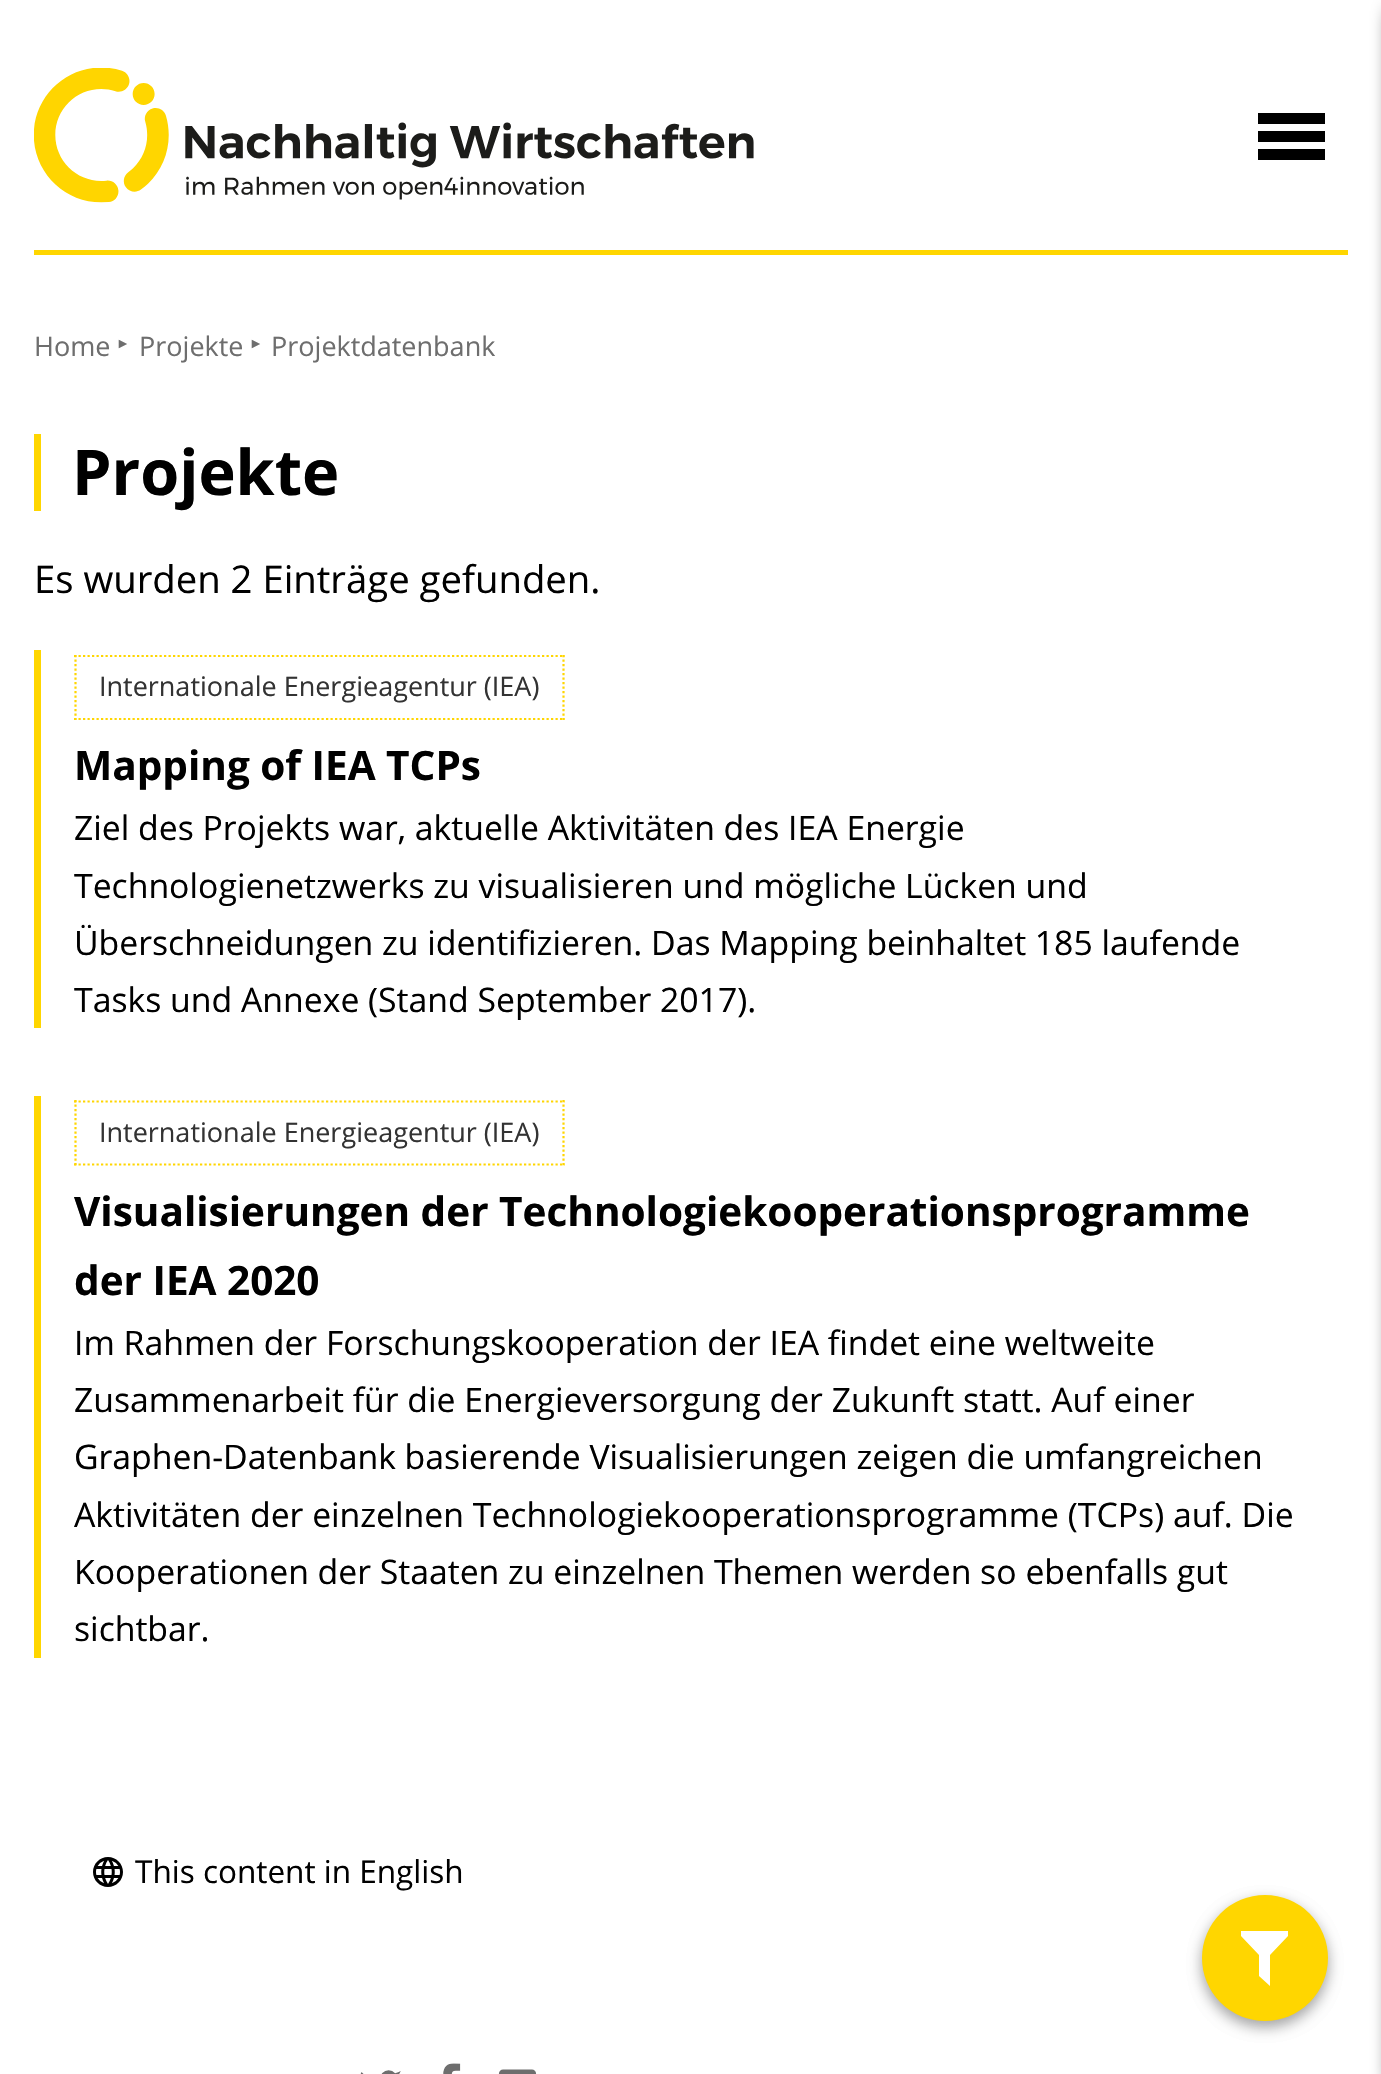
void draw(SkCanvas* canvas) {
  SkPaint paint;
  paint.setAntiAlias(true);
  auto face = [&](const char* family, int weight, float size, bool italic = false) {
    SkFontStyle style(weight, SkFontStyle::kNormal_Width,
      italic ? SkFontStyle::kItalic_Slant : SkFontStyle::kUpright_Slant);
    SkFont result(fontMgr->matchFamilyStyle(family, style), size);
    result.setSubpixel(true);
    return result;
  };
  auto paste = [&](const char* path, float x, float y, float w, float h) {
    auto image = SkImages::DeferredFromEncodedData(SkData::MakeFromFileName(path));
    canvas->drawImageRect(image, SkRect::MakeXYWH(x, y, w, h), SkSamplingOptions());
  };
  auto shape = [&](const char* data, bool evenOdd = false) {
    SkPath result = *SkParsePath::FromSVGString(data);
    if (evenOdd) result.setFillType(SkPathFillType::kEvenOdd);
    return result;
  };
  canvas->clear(0xffffffff);
  paste("img/1.png", 34, 68, 720, 135);
  {
    const struct { float x, y, w, h; SkColor color; } items[] = {
      {1258, 131, 67, 11, 0xff000000},
      {1258, 113, 67, 11, 0xff000000},
      {1258, 149, 67, 11, 0xff000000},
    };
    for (auto [x, y, w, h, color] : items) {
      paint.setColor(color);
      canvas->drawRect(SkRect::MakeXYWH(x, y, w, h), paint);
    }
  }
  paint.setMaskFilter(SkMaskFilter::MakeBlur(kNormal_SkBlurStyle, 10));
  canvas->drawRect(SkRect::MakeXYWH(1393, 11, 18, 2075), paint);
  paint.setMaskFilter(nullptr);
  {
    const struct { float x, y, w, h; SkColor color; } items[] = {
      {34, 250, 1314, 5, 0xffffd600},
      {34, 434, 7, 77, 0xffffd600},
      {34, 650, 7, 378, 0xffffd600},
    };
    for (auto [x, y, w, h, color] : items) {
      paint.setColor(color);
      canvas->drawRect(SkRect::MakeXYWH(x, y, w, h), paint);
    }
  }
  paint.setStroke(true);
  paint.setStrokeWidth(2.2f);
  paint.setPathEffect(SkDashPathEffect::Make({{2.25f, 2.25f}}, 0));
  canvas->drawPath(shape("M74 656H565"), paint);
  paint.setPathEffect(nullptr);
  paint.setPathEffect(SkDashPathEffect::Make({{2.25f, 2.25f}}, 0));
  canvas->drawPath(shape("M563.5 655V720"), paint);
  paint.setPathEffect(nullptr);
  paint.setPathEffect(SkDashPathEffect::Make({{2.25f, 2.25f}}, 0));
  canvas->drawPath(shape("M74 719H565"), paint);
  paint.setPathEffect(nullptr);
  paint.setPathEffect(SkDashPathEffect::Make({{2.25f, 2.25f}}, 0));
  canvas->drawPath(shape("M75.5 655V720"), paint);
  paint.setPathEffect(nullptr);
  paint.setStroke(false);
  canvas->drawRect(SkRect::MakeXYWH(34, 1096, 7, 562), paint);
  paint.setStroke(true);
  paint.setPathEffect(SkDashPathEffect::Make({{2.25f, 2.25f}}, 0));
  canvas->drawPath(shape("M74 1101.5H565"), paint);
  paint.setPathEffect(nullptr);
  paint.setPathEffect(SkDashPathEffect::Make({{2.25f, 2.25f}}, 0));
  canvas->drawPath(shape("M563.5 1100V1165.5"), paint);
  paint.setPathEffect(nullptr);
  paint.setPathEffect(SkDashPathEffect::Make({{2.25f, 2.25f}}, 0));
  canvas->drawPath(shape("M74 1164.5H565"), paint);
  paint.setPathEffect(nullptr);
  paint.setPathEffect(SkDashPathEffect::Make({{2.25f, 2.25f}}, 0));
  canvas->drawPath(shape("M75.5 1100V1165.5"), paint);
  paint.setPathEffect(nullptr);
  paste("img/2.png", 93, 1857, 30, 30);
  paint.setStroke(false);
  paint.setColor(0x3b000000);
  paint.setMaskFilter(SkMaskFilter::MakeBlur(kNormal_SkBlurStyle, 7));
  canvas->drawRoundRect(SkRect::MakeXYWH(1202, 1901, 126, 126), 63, 63, paint);
  paint.setMaskFilter(nullptr);
  paint.setColor(0x29000000);
  paint.setMaskFilter(SkMaskFilter::MakeBlur(kNormal_SkBlurStyle, 7));
  canvas->drawRoundRect(SkRect::MakeXYWH(1202, 1901, 126, 126), 63, 63, paint);
  paint.setMaskFilter(nullptr);
  paint.setColor(0xffffd600);
  canvas->drawCircle(1265, 1958, 63, paint);
  paint.setColor(0xffffffff);
  canvas->drawPath(shape("M1241 1931H1288V1936L1270 1955V1986L1259 1976V1955L1241 1936Z"), paint);
  paste("img/3.png", 360, 2070, 41, 4);
  paste("img/4.png", 443, 2063, 18, 11);
  paste("img/5.png", 498, 2069, 39, 5);
  auto f0 = face("Open Sans", 400, 27);
  paint.setColor(0xff6e6e6e);
  canvas->drawString("Home", 34, 356, f0, paint);
  auto f1 = face("Liberation Sans", 400, 14);
  canvas->drawString("►", 116, 348, f1, paint);
  canvas->drawString("Projekte", 139, 356, f0, paint);
  canvas->drawString("►", 249, 348, f1, paint);
  canvas->drawString("Projektdatenbank", 271, 356, f0, paint);
  auto f2 = face("Open Sans", 700, 63);
  paint.setColor(0xff000000);
  canvas->drawString("Projekte", 72, 495, f2, paint);
  auto f3 = face("Open Sans", 400, 38.25f);
  canvas->drawString("Es wurden 2 Einträge gefunden.", 34, 593, f3, paint);
  paint.setColor(0xff333333);
  canvas->drawString("Internationale Energieagentur (IEA)", 99, 696, f0, paint);
  auto f4 = face("Open Sans", 700, 40.5f);
  paint.setColor(0xff000000);
  canvas->drawString("Mapping of IEA TCPs", 74, 780, f4, paint);
  auto f5 = face("Open Sans", 400, 33.75f);
  {
    const struct { const char* s; float x, y; } items[] = {
      {"Ziel des Projekts war, aktuelle Aktivitäten des IEA Energie", 74, 840},
      {"Technologienetzwerks zu visualisieren und mögliche Lücken und", 74, 898},
      {"Überschneidungen zu identifizieren. Das Mapping beinhaltet 185 laufende", 74, 955},
      {"Tasks und Annexe (Stand September 2017).", 74, 1012},
    };
    for (auto [s, x, y] : items) {
      canvas->drawString(s, x, y, f5, paint);
    }
  }
  paint.setColor(0xff333333);
  canvas->drawString("Internationale Energieagentur (IEA)", 99, 1142, f0, paint);
  paint.setColor(0xff000000);
  canvas->drawString("Visualisierungen der Technologiekooperationsprogramme", 74, 1226, f4, paint);
  canvas->drawString("der IEA 2020", 74, 1295, f4, paint);
  {
    const struct { const char* s; float x, y; } items[] = {
      {"Im Rahmen der Forschungskooperation der IEA findet eine weltweite", 74, 1355},
      {"Zusammenarbeit für die Energieversorgung der Zukunft statt. Auf einer", 74, 1412},
      {"Graphen-Datenbank basierende Visualisierungen zeigen die umfangreichen", 74, 1469},
      {"Aktivitäten der einzelnen Technologiekooperationsprogramme (TCPs) auf. Die", 74, 1527},
      {"Kooperationen der Staaten zu einzelnen Themen werden so ebenfalls gut", 74, 1584},
      {"sichtbar.", 74, 1641},
    };
    for (auto [s, x, y] : items) {
      canvas->drawString(s, x, y, f5, paint);
    }
  }
  auto f6 = face("Open Sans", 400, 31.5f);
  canvas->drawString("This content in English", 135, 1883, f6, paint);
}
